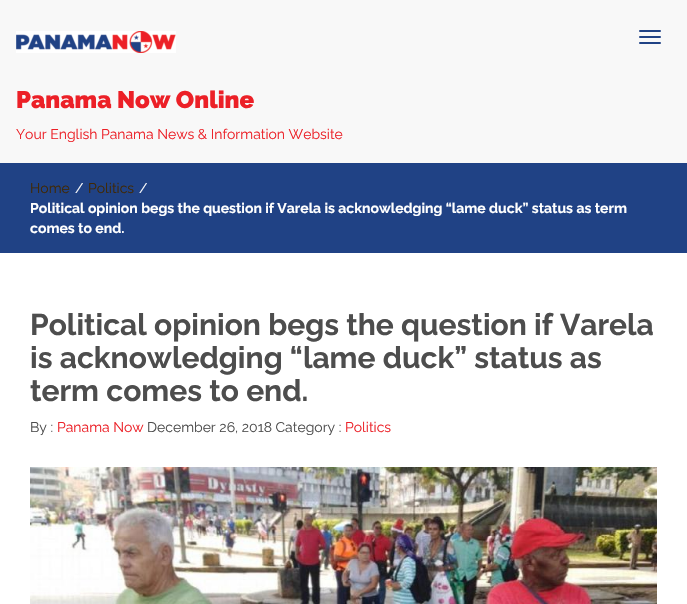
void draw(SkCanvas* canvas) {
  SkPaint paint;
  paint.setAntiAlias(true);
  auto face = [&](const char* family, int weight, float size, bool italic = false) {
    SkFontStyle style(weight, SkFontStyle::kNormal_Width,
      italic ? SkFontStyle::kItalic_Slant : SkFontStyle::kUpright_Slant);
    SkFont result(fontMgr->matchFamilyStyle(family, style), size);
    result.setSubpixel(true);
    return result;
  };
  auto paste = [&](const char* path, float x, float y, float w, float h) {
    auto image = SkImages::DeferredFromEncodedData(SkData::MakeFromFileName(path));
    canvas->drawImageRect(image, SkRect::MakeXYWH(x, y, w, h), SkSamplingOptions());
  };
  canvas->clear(0xffffffff);
  paint.setColor(0xfff8f8f8);
  canvas->drawRect(SkRect::MakeXYWH(0, 0, 687, 163), paint);
  paint.setColor(0xff204285);
  canvas->drawRoundRect(SkRect::MakeXYWH(639, 30, 22, 2), 1, 1, paint);
  canvas->drawRoundRect(SkRect::MakeXYWH(639, 36, 22, 2), 1, 1, paint);
  canvas->drawRoundRect(SkRect::MakeXYWH(639, 42, 22, 2), 1, 1, paint);
  paste("img/1.png", 16, 31, 160, 22);
  canvas->drawRect(SkRect::MakeXYWH(0, 163, 687, 90), paint);
  paste("img/2.png", 30, 467, 627, 137);
  auto f0 = face("Raleway", 900, 24);
  paint.setColor(0xffec2027);
  canvas->drawString("Panama Now Online", 16, 108, f0, paint);
  auto f1 = face("Raleway", 400, 14);
  canvas->drawString("Your English Panama News & Information Website", 16, 139, f1, paint);
  paint.setColor(0xff402804);
  canvas->drawString("Home", 30, 193, f1, paint);
  paint.setColor(0xffffffff);
  canvas->drawString("/", 75, 193, f1, paint);
  paint.setColor(0xff402804);
  canvas->drawString("Politics", 88, 193, f1, paint);
  paint.setColor(0xffffffff);
  canvas->drawString("/", 139, 193, f1, paint);
  auto f2 = face("Raleway", 700, 14);
  canvas->drawString("Political opinion begs the question if Varela is acknowledging “lame duck” status as term", 30, 213, f2, paint);
  canvas->drawString("comes to end.", 30, 233, f2, paint);
  auto f3 = face("Raleway", 700, 30);
  paint.setColor(0xff4d4d4d);
  {
    const struct { const char* s; float x, y; } items[] = {
      {"Political opinion begs the question if Varela", 30, 335},
      {"is acknowledging “lame duck” status as", 30, 368},
      {"term comes to end.", 30, 401},
    };
    for (auto [s, x, y] : items) {
      canvas->drawString(s, x, y, f3, paint);
    }
  }
  canvas->drawString("By :", 30, 432, f1, paint);
  paint.setColor(0xffec2027);
  canvas->drawString("Panama Now", 57, 432, f1, paint);
  paint.setColor(0xff4d4d4d);
  canvas->drawString("December 26, 2018 Category :", 147, 432, f1, paint);
  paint.setColor(0xffec2027);
  canvas->drawString("Politics", 345, 432, f1, paint);
}
